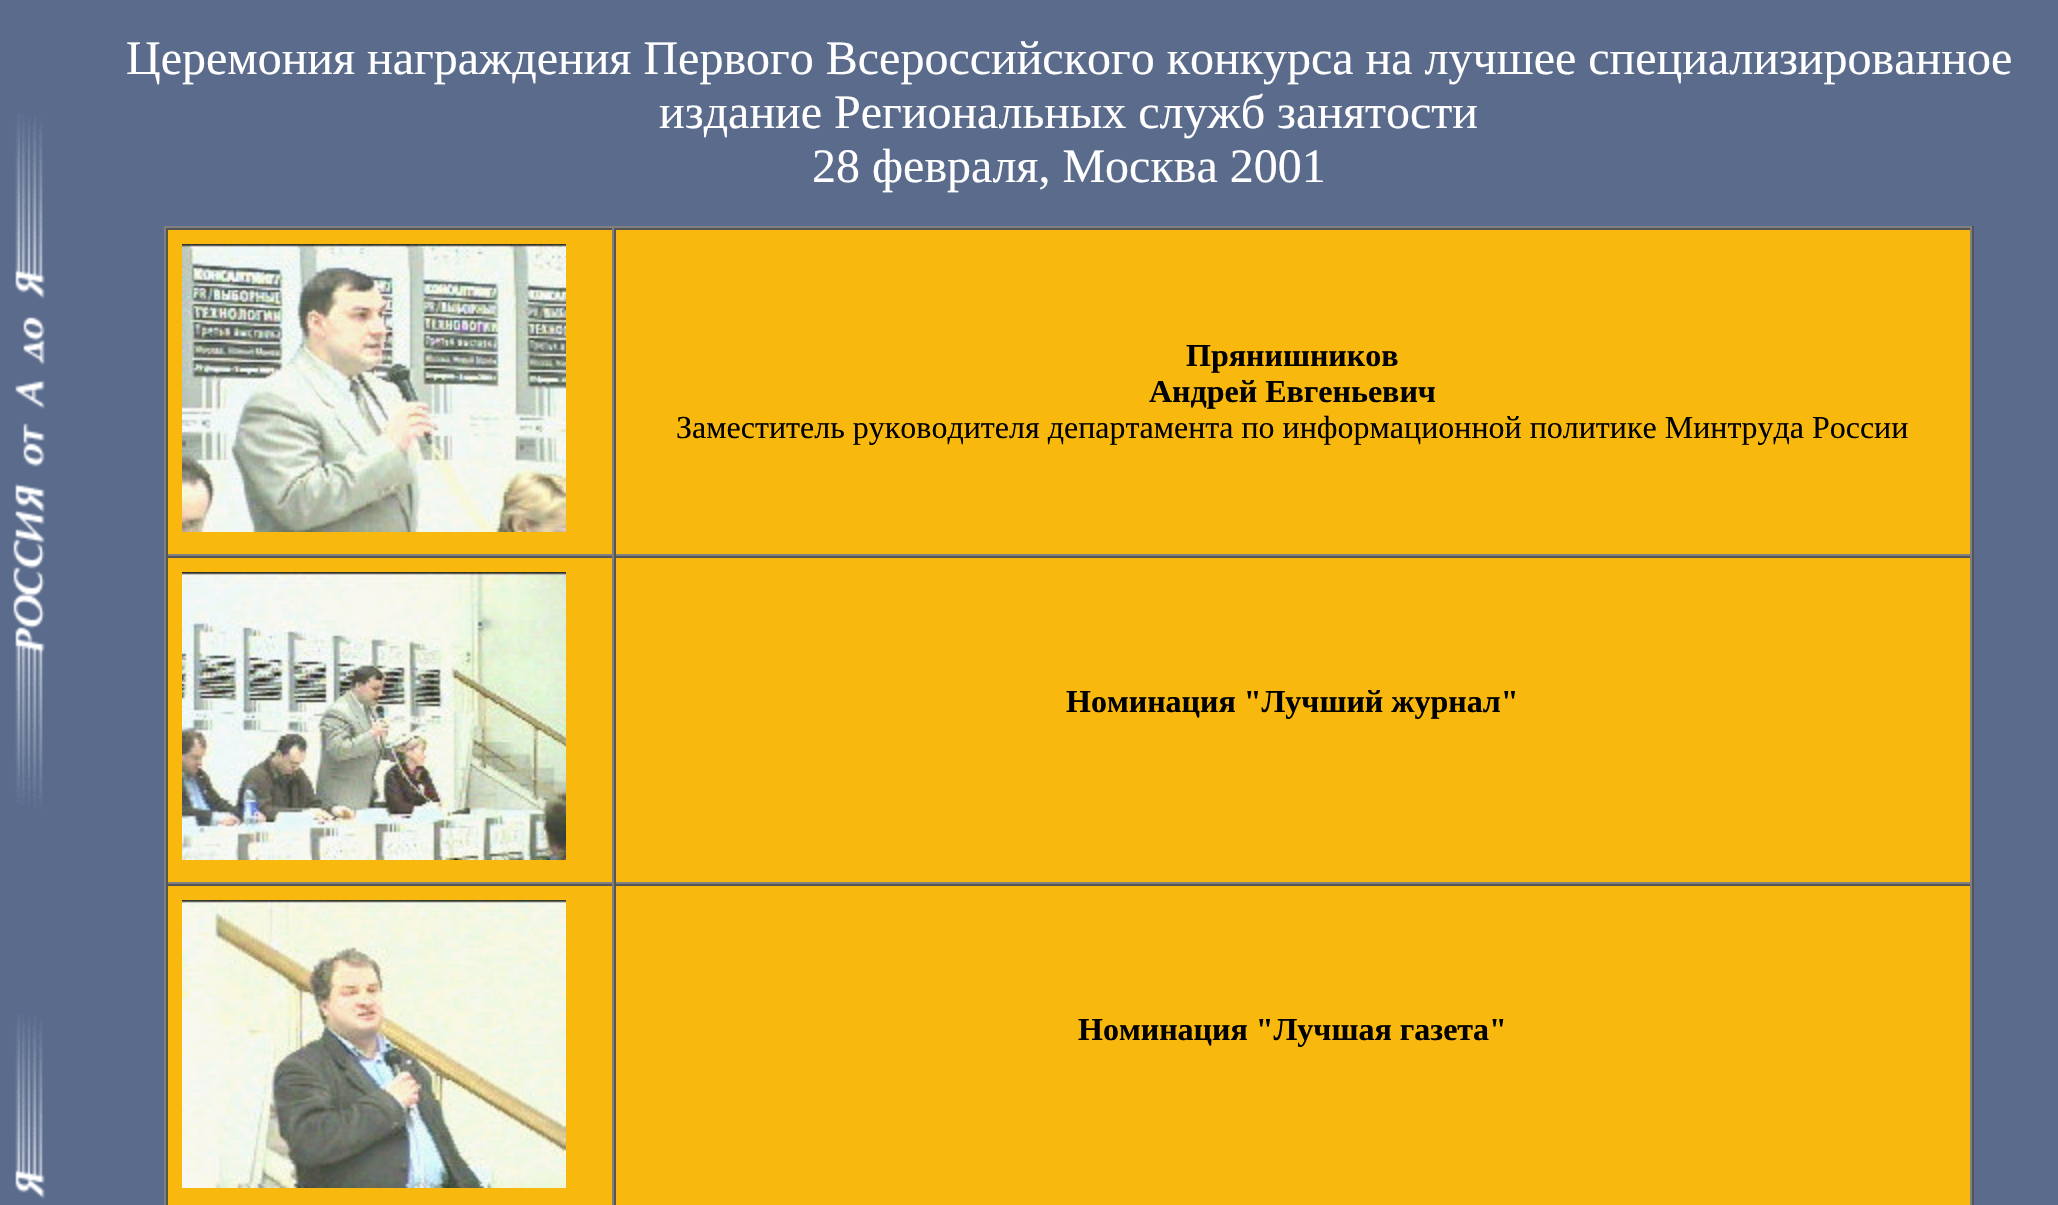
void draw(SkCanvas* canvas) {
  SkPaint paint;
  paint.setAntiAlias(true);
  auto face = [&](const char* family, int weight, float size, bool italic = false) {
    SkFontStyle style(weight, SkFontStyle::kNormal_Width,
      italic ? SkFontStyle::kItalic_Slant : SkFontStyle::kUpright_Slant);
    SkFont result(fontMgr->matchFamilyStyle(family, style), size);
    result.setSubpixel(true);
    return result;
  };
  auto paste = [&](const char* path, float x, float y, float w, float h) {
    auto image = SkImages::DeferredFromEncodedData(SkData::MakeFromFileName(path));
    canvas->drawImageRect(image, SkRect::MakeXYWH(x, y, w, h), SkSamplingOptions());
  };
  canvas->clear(0xffffffff);
  paste("img/1.png", 0, 0, 2058, 1205);
  {
    const struct { float x, y, w, h; SkColor color; } items[] = {
      {168, 230, 1802, 975, 0xfff9b80d},
      {164, 226, 1810, 2, 0xff808080},
      {1972, 226, 2, 979, 0xff555555},
      {164, 226, 2, 979, 0xff808080},
      {166, 228, 1806, 2, 0xff555555},
      {612, 228, 2, 328, 0xff808080},
      {166, 554, 448, 2, 0xff808080},
      {166, 228, 2, 328, 0xff555555},
    };
    for (auto [x, y, w, h, color] : items) {
      paint.setColor(color);
      canvas->drawRect(SkRect::MakeXYWH(x, y, w, h), paint);
    }
  }
  paste("img/2.png", 182, 244, 384, 288);
  {
    const struct { float x, y, w, h; SkColor color; } items[] = {
      {1970, 228, 2, 328, 0xff808080},
      {614, 554, 1358, 2, 0xff808080},
      {614, 228, 2, 328, 0xff555555},
      {166, 556, 1806, 2, 0xff555555},
      {612, 556, 2, 328, 0xff808080},
      {166, 882, 448, 2, 0xff808080},
      {166, 556, 2, 328, 0xff555555},
    };
    for (auto [x, y, w, h, color] : items) {
      paint.setColor(color);
      canvas->drawRect(SkRect::MakeXYWH(x, y, w, h), paint);
    }
  }
  paste("img/3.png", 182, 572, 384, 288);
  {
    const struct { float x, y, w, h; SkColor color; } items[] = {
      {1970, 556, 2, 328, 0xff808080},
      {614, 882, 1358, 2, 0xff808080},
      {614, 556, 2, 328, 0xff555555},
      {166, 884, 1806, 2, 0xff555555},
      {612, 884, 2, 321, 0xff808080},
      {166, 884, 2, 321, 0xff555555},
    };
    for (auto [x, y, w, h, color] : items) {
      paint.setColor(color);
      canvas->drawRect(SkRect::MakeXYWH(x, y, w, h), paint);
    }
  }
  paste("img/4.png", 182, 900, 384, 288);
  paint.setColor(0xff808080);
  canvas->drawRect(SkRect::MakeXYWH(1970, 884, 2, 321), paint);
  paint.setColor(0xff555555);
  canvas->drawRect(SkRect::MakeXYWH(614, 884, 2, 321), paint);
  auto f0 = face("Liberation Serif", 400, 48);
  paint.setColor(0xffffffff);
  {
    const struct { const char* s; float x, y; } items[] = {
      {"Церемония награждения Первого Всероссийского конкурса на лучшее специализированное", 126, 74},
      {"издание Региональных служб занятости", 659, 128},
      {"28 февраля, Москва 2001", 812, 182},
    };
    for (auto [s, x, y] : items) {
      canvas->drawString(s, x, y, f0, paint);
    }
  }
  auto f1 = face("Liberation Serif", 700, 32);
  paint.setColor(0xff000000);
  canvas->drawString("Прянишников", 1186, 366, f1, paint);
  canvas->drawString("Андрей Евгеньевич", 1149, 402, f1, paint);
  auto f2 = face("Liberation Serif", 400, 32);
  canvas->drawString("Заместитель руководителя департамента по информационной политике Минтруда России", 676, 438, f2, paint);
  canvas->drawString("Номинация \"Лучший журнал\"", 1066, 712, f1, paint);
  canvas->drawString("Номинация \"Лучшая газета\"", 1078, 1040, f1, paint);
}
